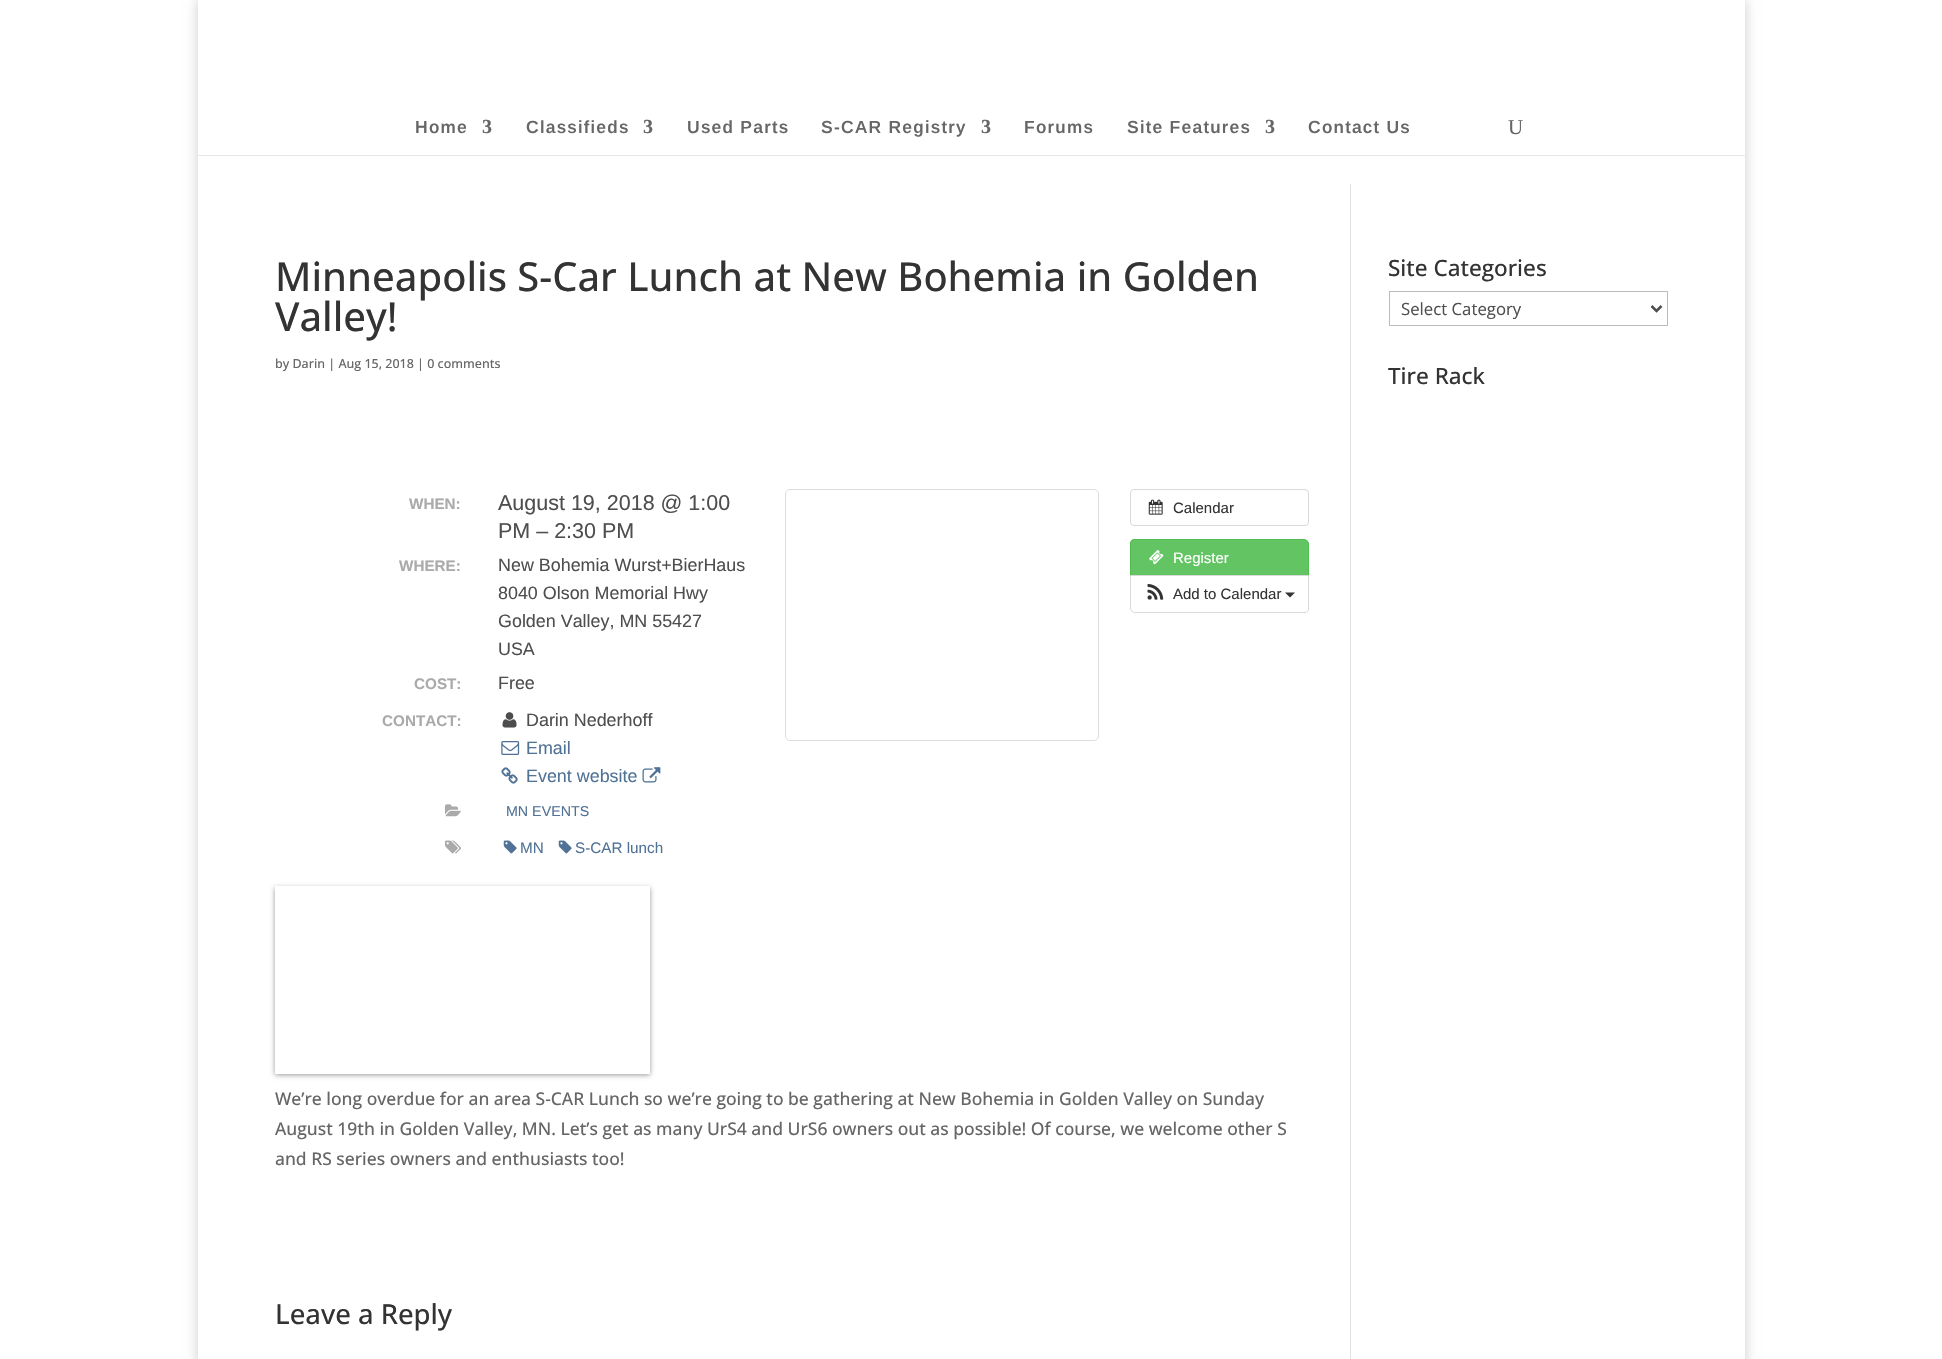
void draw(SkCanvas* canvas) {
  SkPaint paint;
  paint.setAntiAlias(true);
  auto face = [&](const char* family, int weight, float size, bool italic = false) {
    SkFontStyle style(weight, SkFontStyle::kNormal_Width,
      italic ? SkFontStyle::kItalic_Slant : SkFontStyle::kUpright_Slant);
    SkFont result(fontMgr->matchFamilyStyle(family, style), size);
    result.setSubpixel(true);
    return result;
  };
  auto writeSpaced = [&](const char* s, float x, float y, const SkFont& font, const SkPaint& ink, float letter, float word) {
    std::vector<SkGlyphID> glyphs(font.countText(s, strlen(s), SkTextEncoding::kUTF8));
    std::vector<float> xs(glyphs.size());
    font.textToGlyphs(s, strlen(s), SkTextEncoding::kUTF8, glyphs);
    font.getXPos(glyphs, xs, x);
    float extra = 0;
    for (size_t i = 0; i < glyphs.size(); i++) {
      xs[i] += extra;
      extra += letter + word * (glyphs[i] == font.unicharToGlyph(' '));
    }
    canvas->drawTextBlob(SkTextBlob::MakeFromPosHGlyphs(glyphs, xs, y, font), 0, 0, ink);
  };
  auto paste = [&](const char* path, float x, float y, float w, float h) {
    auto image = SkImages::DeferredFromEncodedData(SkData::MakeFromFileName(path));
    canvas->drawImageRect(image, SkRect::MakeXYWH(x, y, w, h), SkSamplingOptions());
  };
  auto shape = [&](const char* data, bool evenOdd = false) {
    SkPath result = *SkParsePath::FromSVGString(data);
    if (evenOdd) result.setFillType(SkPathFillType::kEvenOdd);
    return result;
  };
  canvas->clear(0xffffffff);
  canvas->save();
  canvas->clipPath(shape("M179 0H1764V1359H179ZM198 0H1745V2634H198Z", true), true);
  paint.setColor(0x33000000);
  paint.setMaskFilter(SkMaskFilter::MakeBlur(kNormal_SkBlurStyle, 6));
  canvas->drawRect(SkRect::MakeXYWH(198, 0, 1547, 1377), paint);
  paint.setMaskFilter(nullptr);
  canvas->restore();
  paint.setColor(0xffe6e6e6);
  canvas->drawRect(SkRect::MakeXYWH(198, 155, 1547, 1), paint);
  paint.setColor(0xffe2e2e2);
  canvas->drawRect(SkRect::MakeXYWH(1350, 184, 1, 1175), paint);
  paste("img/1.png", 502, 712, 15, 16);
  paste("img/2.png", 501, 741, 19, 14);
  paste("img/3.png", 501, 767, 17, 17);
  paste("img/4.png", 642, 767, 19, 16);
  paste("img/5.png", 445, 804, 16, 13);
  paste("img/6.png", 445, 840, 16, 14);
  paste("img/7.png", 503, 840, 14, 14);
  paste("img/7.png", 558, 840, 14, 14);
  paint.setStroke(true);
  paint.setStrokeWidth(1);
  paint.setColor(0xffdddddd);
  canvas->drawRoundRect(SkRect::MakeXYWH(785.5f, 489.5f, 313, 251), 4.5f, 4.5f, paint);
  paint.setColor(0xffd9d9d9);
  canvas->drawRoundRect(SkRect::MakeXYWH(1130.5f, 489.5f, 178, 36), 3.5f, 3.5f, paint);
  paste("img/8.png", 1148, 499, 15, 16);
  paint.setStroke(false);
  paint.setColor(0xff62c462);
  canvas->drawPath(shape("M1134 539.5H1304C1306.5 539.5 1308.5 541.5 1308.5 544V575.5H1130.5V543C1130.5 541 1132 539.5 1134 539.5Z"), paint);
  paint.setStroke(true);
  paint.setColor(0xff4fbd4f);
  canvas->drawPath(shape("M1134 539.5H1304C1306.5 539.5 1308.5 541.5 1308.5 544V575.5H1130.5V543C1130.5 541 1132 539.5 1134 539.5Z"), paint);
  paste("img/9.png", 1149, 550, 15, 15);
  paint.setStroke(false);
  paint.setColor(0xffffffff);
  canvas->drawPath(shape("M1130.5 575.5H1308.5V609C1308.5 611 1307 612.5 1305 612.5H1135C1132.5 612.5 1130.5 610.5 1130.5 608Z"), paint);
  paint.setStroke(true);
  paint.setColor(0xffd9d9d9);
  canvas->drawPath(shape("M1130.5 575.5H1308.5V609C1308.5 611 1307 612.5 1305 612.5H1135C1132.5 612.5 1130.5 610.5 1130.5 608Z"), paint);
  paste("img/10.png", 1147, 584, 17, 16);
  paint.setStroke(false);
  paint.setColor(0xff333333);
  canvas->drawPath(shape("M1285 592.5H1295L1290 597.5Z"), paint);
  paint.setColor(0x66000000);
  paint.setMaskFilter(SkMaskFilter::MakeBlur(kNormal_SkBlurStyle, 2.5f));
  canvas->drawRect(SkRect::MakeXYWH(275, 888, 375, 187), paint);
  paint.setMaskFilter(nullptr);
  paint.setColor(0xffffffff);
  canvas->drawRect(SkRect::MakeXYWH(275, 886, 375, 188), paint);
  paint.setStroke(true);
  paint.setColor(0xffbbbbbb);
  canvas->drawRect(SkRect::MakeXYWH(1389.5f, 291.5f, 278, 34), paint);
  paint.setStrokeWidth(2.5f);
  paint.setColor(0xff4e4e4e);
  canvas->drawPath(shape("M1651.5 306L1656.5 311L1661.5 306"), paint);
  auto f0 = face("Arimo", 600, 17.5f);
  paint.setStroke(false);
  paint.setColor(0xff666666);
  writeSpaced("Home", 415, 133, f0, paint, 1.25f, 0);
  auto f1 = face("Liberation Serif", 700, 20);
  writeSpaced("3", 482, 133, f1, paint, 1.25f, 0);
  writeSpaced("Classifieds", 526, 133, f0, paint, 1.25f, 0);
  writeSpaced("3", 643, 133, f1, paint, 1.25f, 0);
  writeSpaced("Used Parts", 687, 133, f0, paint, 1.25f, 0);
  writeSpaced("S-CAR Registry", 821, 133, f0, paint, 1.25f, 0);
  writeSpaced("3", 981, 133, f1, paint, 1.25f, 0);
  writeSpaced("Forums", 1024, 133, f0, paint, 1.25f, 0);
  writeSpaced("Site Features", 1127, 133, f0, paint, 1.25f, 0);
  writeSpaced("3", 1265, 133, f1, paint, 1.25f, 0);
  writeSpaced("Contact Us", 1308, 133, f0, paint, 1.25f, 0);
  auto f2 = face("Liberation Serif", 400, 21);
  canvas->drawString("U", 1508, 134, f2, paint);
  auto f3 = face("Open Sans", 500, 40);
  paint.setColor(0xff333333);
  canvas->drawString("Minneapolis S-Car Lunch at New Bohemia in Golden", 275, 291, f3, paint);
  canvas->drawString("Valley!", 275, 331, f3, paint);
  auto f4 = face("Open Sans", 500, 12.5f);
  paint.setColor(0xff666666);
  canvas->drawString("by Darin | Aug 15, 2018 | 0 comments", 275, 368, f4, paint);
  auto f5 = face("Liberation Sans", 700, 15.25f);
  paint.setColor(0xffaaaaaa);
  canvas->drawString("WHEN:", 409, 509, f5, paint);
  auto f6 = face("Liberation Sans", 400, 21.5f);
  paint.setColor(0xff4e4e4e);
  canvas->drawString("August 19, 2018 @ 1:00", 498, 510, f6, paint);
  canvas->drawString("PM – 2:30 PM", 498, 538, f6, paint);
  paint.setColor(0xffaaaaaa);
  canvas->drawString("WHERE:", 399, 571, f5, paint);
  auto f7 = face("Liberation Sans", 400, 17.9f);
  paint.setColor(0xff4e4e4e);
  {
    const struct { const char* s; float x, y; } items[] = {
      {"New Bohemia Wurst+BierHaus", 498, 571},
      {"8040 Olson Memorial Hwy", 498, 599},
      {"Golden Valley, MN 55427", 498, 627},
      {"USA", 498, 655},
    };
    for (auto [s, x, y] : items) {
      canvas->drawString(s, x, y, f7, paint);
    }
  }
  paint.setColor(0xffaaaaaa);
  canvas->drawString("COST:", 414, 689, f5, paint);
  paint.setColor(0xff4e4e4e);
  canvas->drawString("Free", 498, 689, f7, paint);
  paint.setColor(0xffaaaaaa);
  canvas->drawString("CONTACT:", 382, 726, f5, paint);
  paint.setColor(0xff4e4e4e);
  canvas->drawString("Darin Nederhoff", 526, 726, f7, paint);
  paint.setColor(0xff507295);
  canvas->drawString("Email", 526, 754, f7, paint);
  canvas->drawString("Event website", 526, 782, f7, paint);
  auto f8 = face("Liberation Sans", 400, 14.25f);
  canvas->drawString("MN EVENTS", 506, 816, f8, paint);
  auto f9 = face("Liberation Sans", 400, 15.25f);
  canvas->drawString("MN", 520, 853, f9, paint);
  canvas->drawString("S-CAR lunch", 575, 853, f9, paint);
  auto f10 = face("Liberation Sans", 400, 15);
  paint.setColor(0xff333333);
  canvas->drawString("Calendar", 1173, 513, f10, paint);
  paint.setColor(0xffffffff);
  canvas->drawString("Register", 1173, 563, f10, paint);
  paint.setColor(0xff333333);
  canvas->drawString("Add to Calendar", 1173, 599, f10, paint);
  auto f11 = face("Open Sans", 500, 17.5f);
  paint.setColor(0xff666666);
  {
    const struct { const char* s; float x, y; } items[] = {
      {"We’re long overdue for an area S-CAR Lunch so we’re going to be gathering at New Bohemia in Golden Valley on Sunday", 275, 1105},
      {"August 19th in Golden Valley, MN. Let’s get as many UrS4 and UrS6 owners out as possible! Of course, we welcome other S", 275, 1135},
      {"and RS series owners and enthusiasts too!", 275, 1165},
    };
    for (auto [s, x, y] : items) {
      canvas->drawString(s, x, y, f11, paint);
    }
  }
  auto f12 = face("Open Sans", 500, 27.5f);
  paint.setColor(0xff333333);
  canvas->drawString("Leave a Reply", 275, 1324, f12, paint);
  auto f13 = face("Open Sans", 500, 22.5f);
  canvas->drawString("Site Categories", 1388, 276, f13, paint);
  auto f14 = face("Open Sans", 400, 16.75f);
  paint.setColor(0xff4e4e4e);
  canvas->drawString("Select Category", 1401, 315, f14, paint);
  paint.setColor(0xff333333);
  canvas->drawString("Tire Rack", 1388, 384, f13, paint);
}
